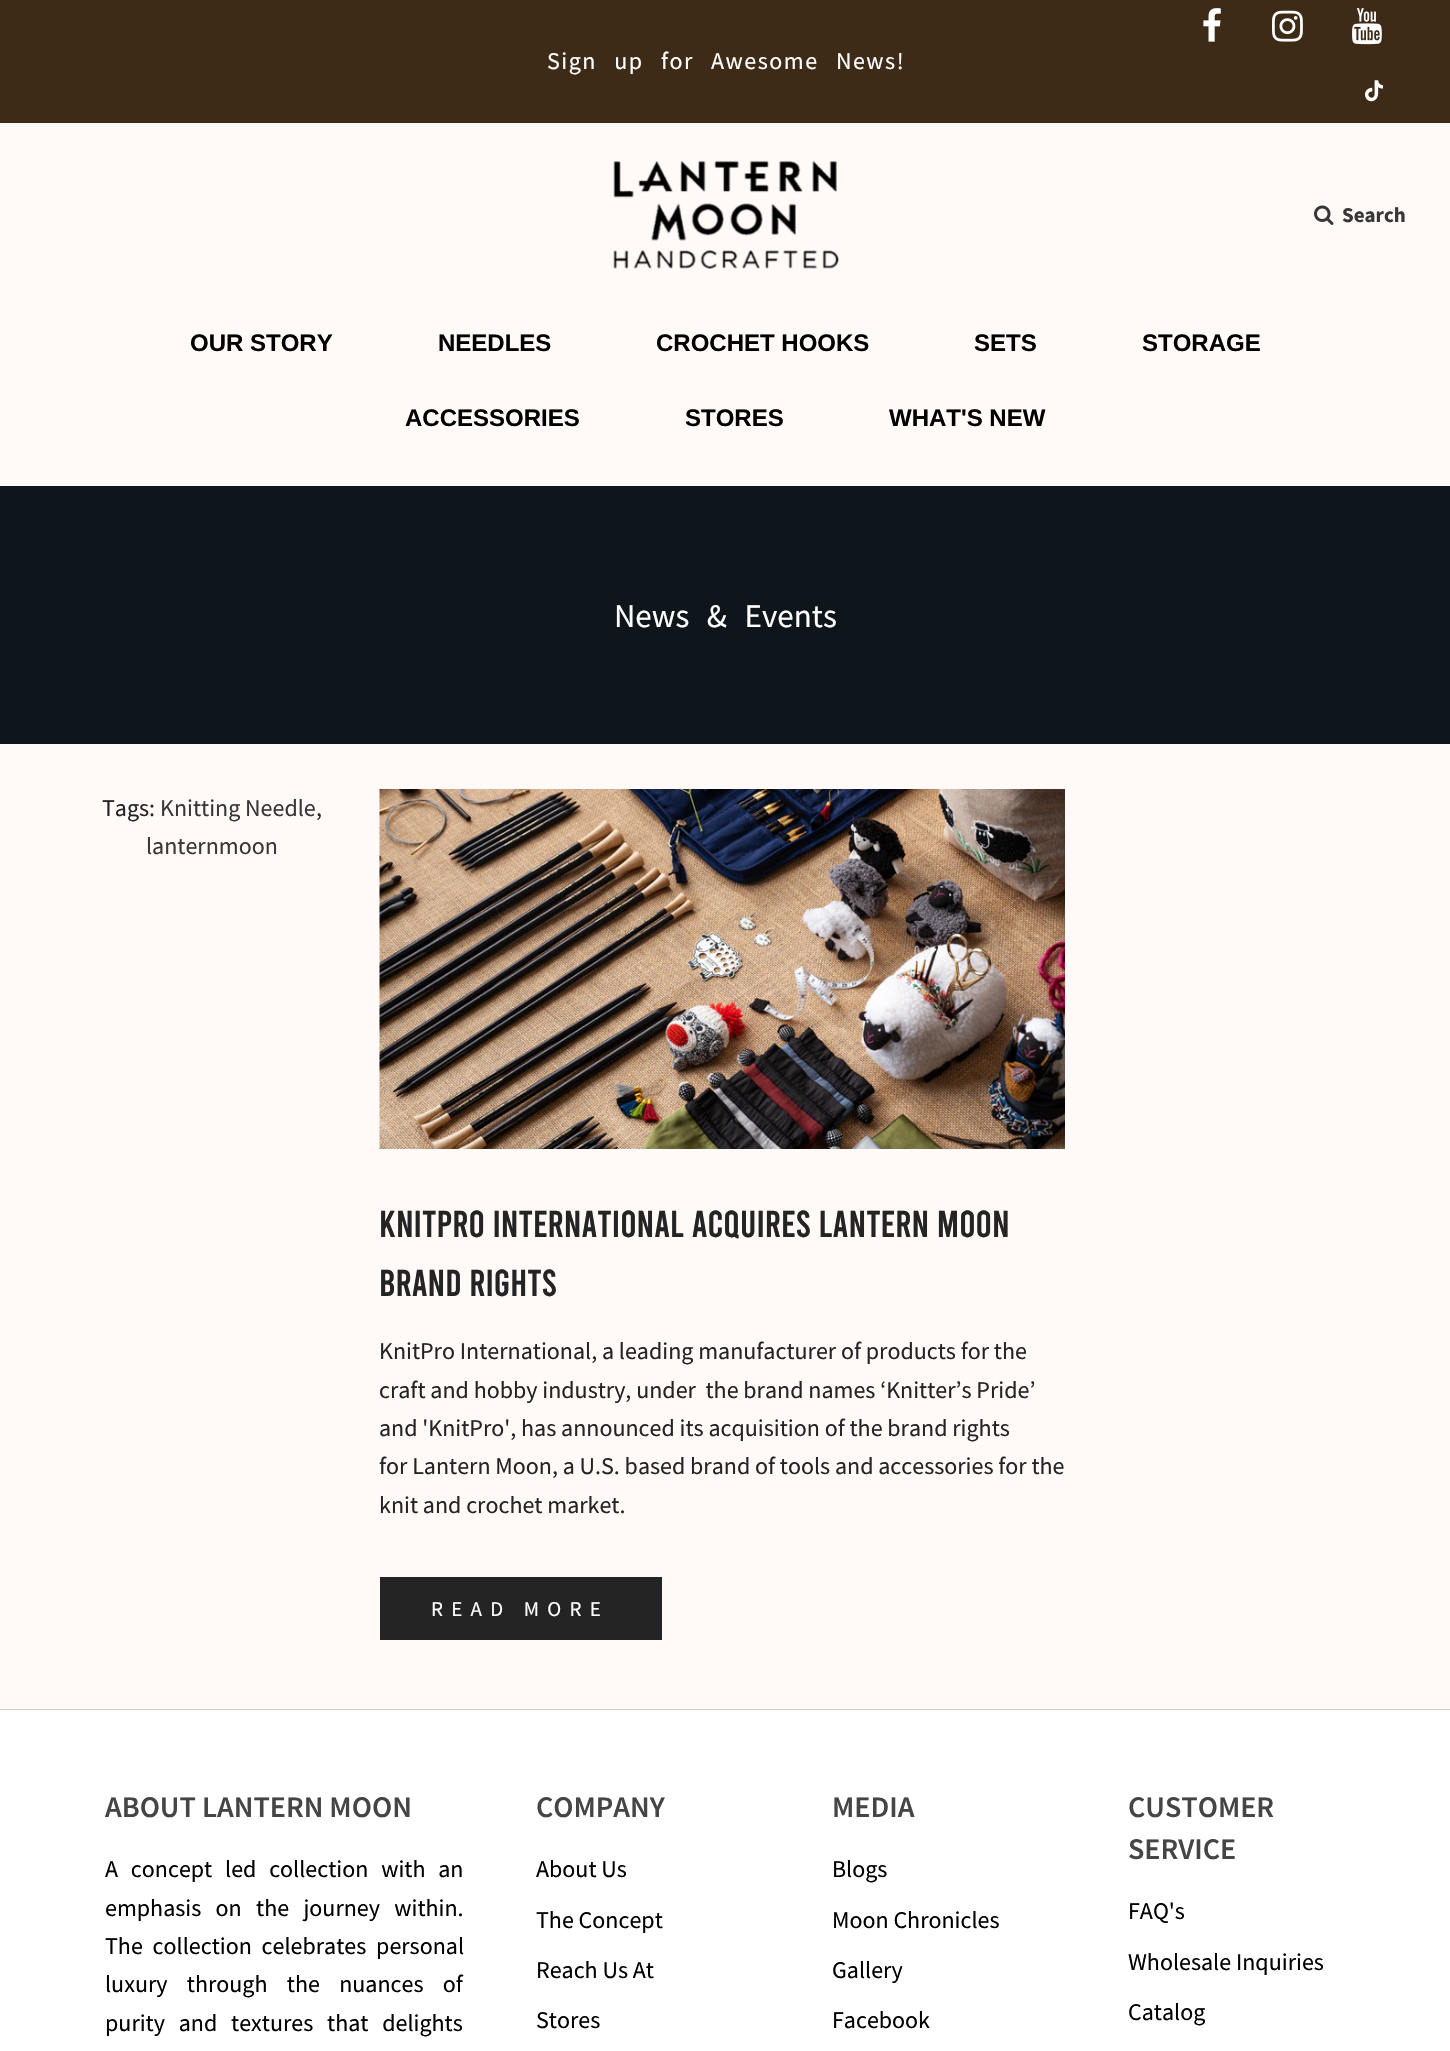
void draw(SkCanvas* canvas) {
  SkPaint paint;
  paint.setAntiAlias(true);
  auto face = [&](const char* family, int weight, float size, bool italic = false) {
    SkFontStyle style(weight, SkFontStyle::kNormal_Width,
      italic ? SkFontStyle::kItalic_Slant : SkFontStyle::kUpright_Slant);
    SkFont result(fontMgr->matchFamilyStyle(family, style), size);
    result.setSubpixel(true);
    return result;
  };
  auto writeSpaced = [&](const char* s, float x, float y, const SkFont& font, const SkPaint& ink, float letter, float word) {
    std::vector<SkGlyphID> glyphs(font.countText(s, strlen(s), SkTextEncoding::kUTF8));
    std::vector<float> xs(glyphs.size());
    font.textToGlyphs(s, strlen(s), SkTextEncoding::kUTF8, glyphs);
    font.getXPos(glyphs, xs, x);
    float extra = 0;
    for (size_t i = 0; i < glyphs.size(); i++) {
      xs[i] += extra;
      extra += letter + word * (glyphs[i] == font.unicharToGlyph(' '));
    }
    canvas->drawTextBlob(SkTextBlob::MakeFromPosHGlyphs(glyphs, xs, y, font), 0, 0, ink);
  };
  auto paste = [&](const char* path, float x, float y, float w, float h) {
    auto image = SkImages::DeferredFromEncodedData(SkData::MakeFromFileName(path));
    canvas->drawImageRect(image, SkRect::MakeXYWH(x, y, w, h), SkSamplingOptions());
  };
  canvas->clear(0xfffffaf8);
  paint.setColor(0xff3d2b18);
  canvas->drawRect(SkRect::MakeXYWH(0, 0, 1450, 123), paint);
  paste("img/1.png", 1203, 8, 18, 34);
  paste("img/2.png", 1272, 10, 31, 32);
  paste("img/3.png", 1352, 8, 30, 37);
  paste("img/4.png", 1365, 80, 18, 22);
  paste("img/5.png", 613, 160, 226, 109);
  paste("img/6.png", 1314, 205, 20, 20);
  paint.setColor(0xff0e151b);
  canvas->drawRect(SkRect::MakeXYWH(0, 486, 1450, 258), paint);
  paste("img/7.png", 379, 789, 686, 360);
  {
    const struct { float x, y, w, h; SkColor color; } items[] = {
      {380, 1577, 282, 63, 0xff242424},
      {0, 1709, 1450, 1, 0xffcccccc},
      {0, 1710, 1450, 341, 0xffffffff},
    };
    for (auto [x, y, w, h, color] : items) {
      paint.setColor(color);
      canvas->drawRect(SkRect::MakeXYWH(x, y, w, h), paint);
    }
  }
  auto f0 = face("Source Sans Pro", 400, 24);
  writeSpaced("Sign up for Awesome News!", 547, 69, f0, paint, 1.5f, 11);
  auto f1 = face("Source Sans Pro", 700, 21);
  paint.setColor(0xff373737);
  canvas->drawString("Search", 1342, 222, f1, paint);
  auto f2 = face("Liberation Sans", 700, 24);
  paint.setColor(0xff000000);
  {
    const struct { const char* s; float x, y; } items[] = {
      {"OUR STORY", 190, 351},
      {"NEEDLES", 438, 351},
      {"CROCHET HOOKS", 656, 351},
      {"SETS", 974, 351},
      {"STORAGE", 1142, 351},
      {"ACCESSORIES", 405, 426},
      {"STORES", 685, 426},
      {"WHAT'S NEW", 889, 426},
    };
    for (auto [s, x, y] : items) {
      canvas->drawString(s, x, y, f2, paint);
    }
  }
  auto f3 = face("Source Sans Pro", 400, 33);
  paint.setColor(0xffffffff);
  writeSpaced("News & Events", 614, 627, f3, paint, 0, 11);
  paint.setColor(0xff242424);
  canvas->drawString("Tags:", 102, 816, f0, paint);
  paint.setColor(0xff373737);
  canvas->drawString("Knitting Needle", 160, 816, f0, paint);
  paint.setColor(0xff242424);
  canvas->drawString(",", 316, 816, f0, paint);
  paint.setColor(0xff373737);
  canvas->drawString("lanternmoon", 146, 854, f0, paint);
  auto f4 = face("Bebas", 400, 37.5f);
  paint.setColor(0xff242424);
  canvas->drawString("KNITPRO INTERNATIONAL ACQUIRES LANTERN MOON", 379, 1237, f4, paint);
  canvas->drawString("BRAND RIGHTS", 379, 1296, f4, paint);
  {
    const struct { const char* s; float x, y; } items[] = {
      {"KnitPro International, a leading manufacturer of products for the", 379, 1359},
      {"craft and hobby industry, under  the brand names ‘Knitter’s Pride’", 379, 1398},
      {"and 'KnitPro', has announced its acquisition of the brand rights", 379, 1436},
      {"for Lantern Moon, a U.S. based brand of tools and accessories for the", 379, 1474},
      {"knit and crochet market.", 379, 1513},
    };
    for (auto [s, x, y] : items) {
      canvas->drawString(s, x, y, f0, paint);
    }
  }
  auto f5 = face("Source Sans Pro", 400, 21);
  paint.setColor(0xffffffff);
  writeSpaced("READ MORE", 431, 1616, f5, paint, 8.25f, 0);
  auto f6 = face("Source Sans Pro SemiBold", 600, 30);
  paint.setColor(0xff464545);
  canvas->drawString("ABOUT LANTERN MOON", 105, 1817, f6, paint);
  paint.setColor(0xff000000);
  writeSpaced("A concept led collection with an", 105, 1877, f0, paint, 0, 8);
  writeSpaced("emphasis on the journey within.", 105, 1916, f0, paint, 0, 9.5f);
  writeSpaced("The collection celebrates personal", 105, 1954, f0, paint, 0, 5);
  writeSpaced("luxury through the nuances of", 105, 1992, f0, paint, 0, 14.5f);
  writeSpaced("purity and textures that delights", 105, 2031, f0, paint, 0, 9);
  paint.setColor(0xff464545);
  canvas->drawString("COMPANY", 536, 1817, f6, paint);
  paint.setColor(0xff000000);
  {
    const struct { const char* s; float x, y; } items[] = {
      {"About Us", 536, 1877},
      {"The Concept", 536, 1928},
      {"Reach Us At", 536, 1978},
      {"Stores", 536, 2028},
    };
    for (auto [s, x, y] : items) {
      canvas->drawString(s, x, y, f0, paint);
    }
  }
  paint.setColor(0xff464545);
  canvas->drawString("MEDIA", 832, 1817, f6, paint);
  paint.setColor(0xff000000);
  {
    const struct { const char* s; float x, y; } items[] = {
      {"Blogs", 832, 1877},
      {"Moon Chronicles", 832, 1928},
      {"Gallery", 832, 1978},
      {"Facebook", 832, 2028},
    };
    for (auto [s, x, y] : items) {
      canvas->drawString(s, x, y, f0, paint);
    }
  }
  paint.setColor(0xff464545);
  canvas->drawString("CUSTOMER", 1128, 1817, f6, paint);
  canvas->drawString("SERVICE", 1128, 1859, f6, paint);
  paint.setColor(0xff000000);
  {
    const struct { const char* s; float x, y; } items[] = {
      {"FAQ's", 1128, 1919},
      {"Wholesale Inquiries", 1128, 1970},
      {"Catalog", 1128, 2020},
    };
    for (auto [s, x, y] : items) {
      canvas->drawString(s, x, y, f0, paint);
    }
  }
}
